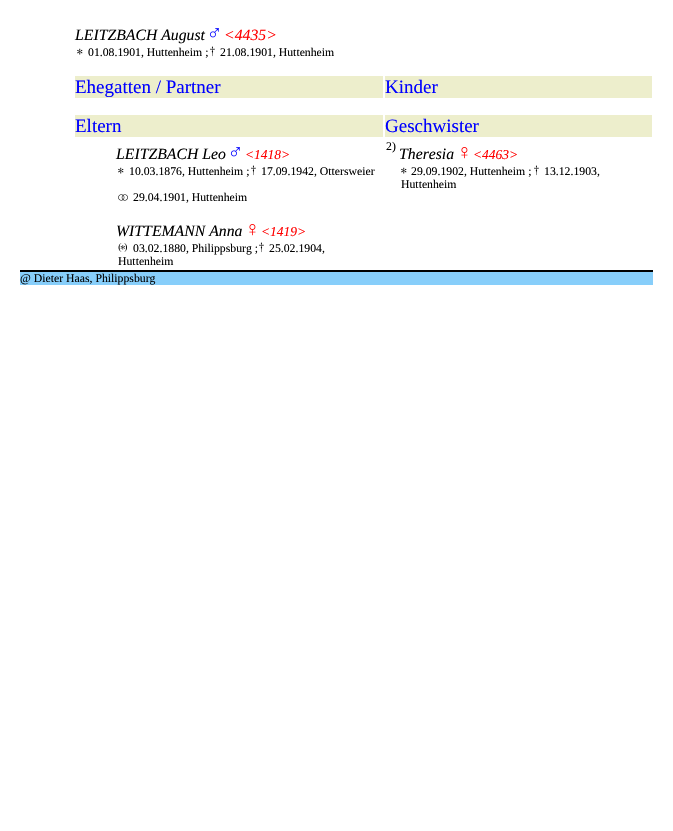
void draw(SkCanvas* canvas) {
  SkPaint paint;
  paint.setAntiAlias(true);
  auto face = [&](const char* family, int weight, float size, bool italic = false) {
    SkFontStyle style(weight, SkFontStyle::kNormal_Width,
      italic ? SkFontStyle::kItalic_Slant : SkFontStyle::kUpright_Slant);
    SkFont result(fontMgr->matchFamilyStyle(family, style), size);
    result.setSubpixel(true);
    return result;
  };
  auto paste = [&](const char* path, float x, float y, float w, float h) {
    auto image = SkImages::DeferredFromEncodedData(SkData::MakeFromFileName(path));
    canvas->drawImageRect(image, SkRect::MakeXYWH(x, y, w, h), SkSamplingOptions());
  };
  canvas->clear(0xffffffff);
  paste("img/1.png", 209, 28, 10, 10);
  paste("img/2.png", 77, 48, 6, 7);
  paste("img/3.png", 210, 46, 5, 11);
  {
    const struct { float x, y, w, h; SkColor color; } items[] = {
      {75, 76, 308, 22, 0xffedeecc},
      {385, 76, 267, 22, 0xffedeecc},
      {75, 115, 308, 22, 0xffedeecc},
      {385, 115, 267, 22, 0xffedeecc},
    };
    for (auto [x, y, w, h, color] : items) {
      paint.setColor(color);
      canvas->drawRect(SkRect::MakeXYWH(x, y, w, h), paint);
    }
  }
  paste("img/1.png", 230, 147, 10, 10);
  paste("img/2.png", 118, 167, 6, 7);
  paste("img/3.png", 251, 165, 5, 11);
  paste("img/4.png", 118, 194, 10, 7);
  paste("img/5.png", 249, 224, 7, 12);
  paste("img/6.png", 118, 243, 9, 9);
  paste("img/3.png", 259, 242, 5, 11);
  paste("img/5.png", 461, 147, 7, 12);
  paste("img/2.png", 401, 167, 6, 7);
  paste("img/3.png", 534, 165, 5, 11);
  paint.setColor(0xff87cefa);
  canvas->drawRect(SkRect::MakeXYWH(20, 272, 633, 13), paint);
  paint.setColor(0xff000000);
  canvas->drawRect(SkRect::MakeXYWH(20, 270, 633, 2), paint);
  auto f0 = face("Liberation Serif", 400, 15.75f, true);
  canvas->drawString("LEITZBACH August", 75, 40, f0, paint);
  paint.setColor(0xffff0000);
  canvas->drawString("<4435>", 224, 40, f0, paint);
  auto f1 = face("Liberation Serif", 400, 11.75f);
  paint.setColor(0xff000000);
  canvas->drawString("01.08.1901, Huttenheim ;", 88, 56, f1, paint);
  canvas->drawString("21.08.1901, Huttenheim", 220, 56, f1, paint);
  auto f2 = face("Liberation Serif", 400, 19);
  paint.setColor(0xff0000ff);
  {
    const struct { const char* s; float x, y; } items[] = {
      {"Ehegatten / Partner", 75, 93},
      {"Kinder", 385, 93},
      {"Eltern", 75, 132},
      {"Geschwister", 385, 132},
    };
    for (auto [s, x, y] : items) {
      canvas->drawString(s, x, y, f2, paint);
    }
  }
  paint.setColor(0xff000000);
  canvas->drawString("LEITZBACH Leo", 116, 159, f0, paint);
  auto f3 = face("Liberation Serif", 400, 13.5f, true);
  paint.setColor(0xffff0000);
  canvas->drawString("<1418>", 245, 159, f3, paint);
  paint.setColor(0xff000000);
  {
    const struct { const char* s; float x, y; } items[] = {
      {"10.03.1876, Huttenheim ;", 129, 175},
      {"17.09.1942, Ottersweier", 261, 175},
      {"29.04.1901, Huttenheim", 133, 201},
    };
    for (auto [s, x, y] : items) {
      canvas->drawString(s, x, y, f1, paint);
    }
  }
  canvas->drawString("WITTEMANN Anna", 116, 236, f0, paint);
  paint.setColor(0xffff0000);
  canvas->drawString("<1419>", 261, 236, f3, paint);
  paint.setColor(0xff000000);
  {
    const struct { const char* s; float x, y; } items[] = {
      {"03.02.1880, Philippsburg ;", 133, 252},
      {"25.02.1904,", 269, 252},
      {"Huttenheim", 118, 265},
      {"2)", 386, 150},
    };
    for (auto [s, x, y] : items) {
      canvas->drawString(s, x, y, f1, paint);
    }
  }
  canvas->drawString("Theresia", 399, 159, f0, paint);
  paint.setColor(0xffff0000);
  canvas->drawString("<4463>", 473, 159, f3, paint);
  paint.setColor(0xff000000);
  {
    const struct { const char* s; float x, y; } items[] = {
      {"29.09.1902, Huttenheim ;", 411, 175},
      {"13.12.1903,", 544, 175},
      {"Huttenheim", 401, 188},
      {"@ Dieter Haas, Philippsburg", 20, 282},
    };
    for (auto [s, x, y] : items) {
      canvas->drawString(s, x, y, f1, paint);
    }
  }
}
